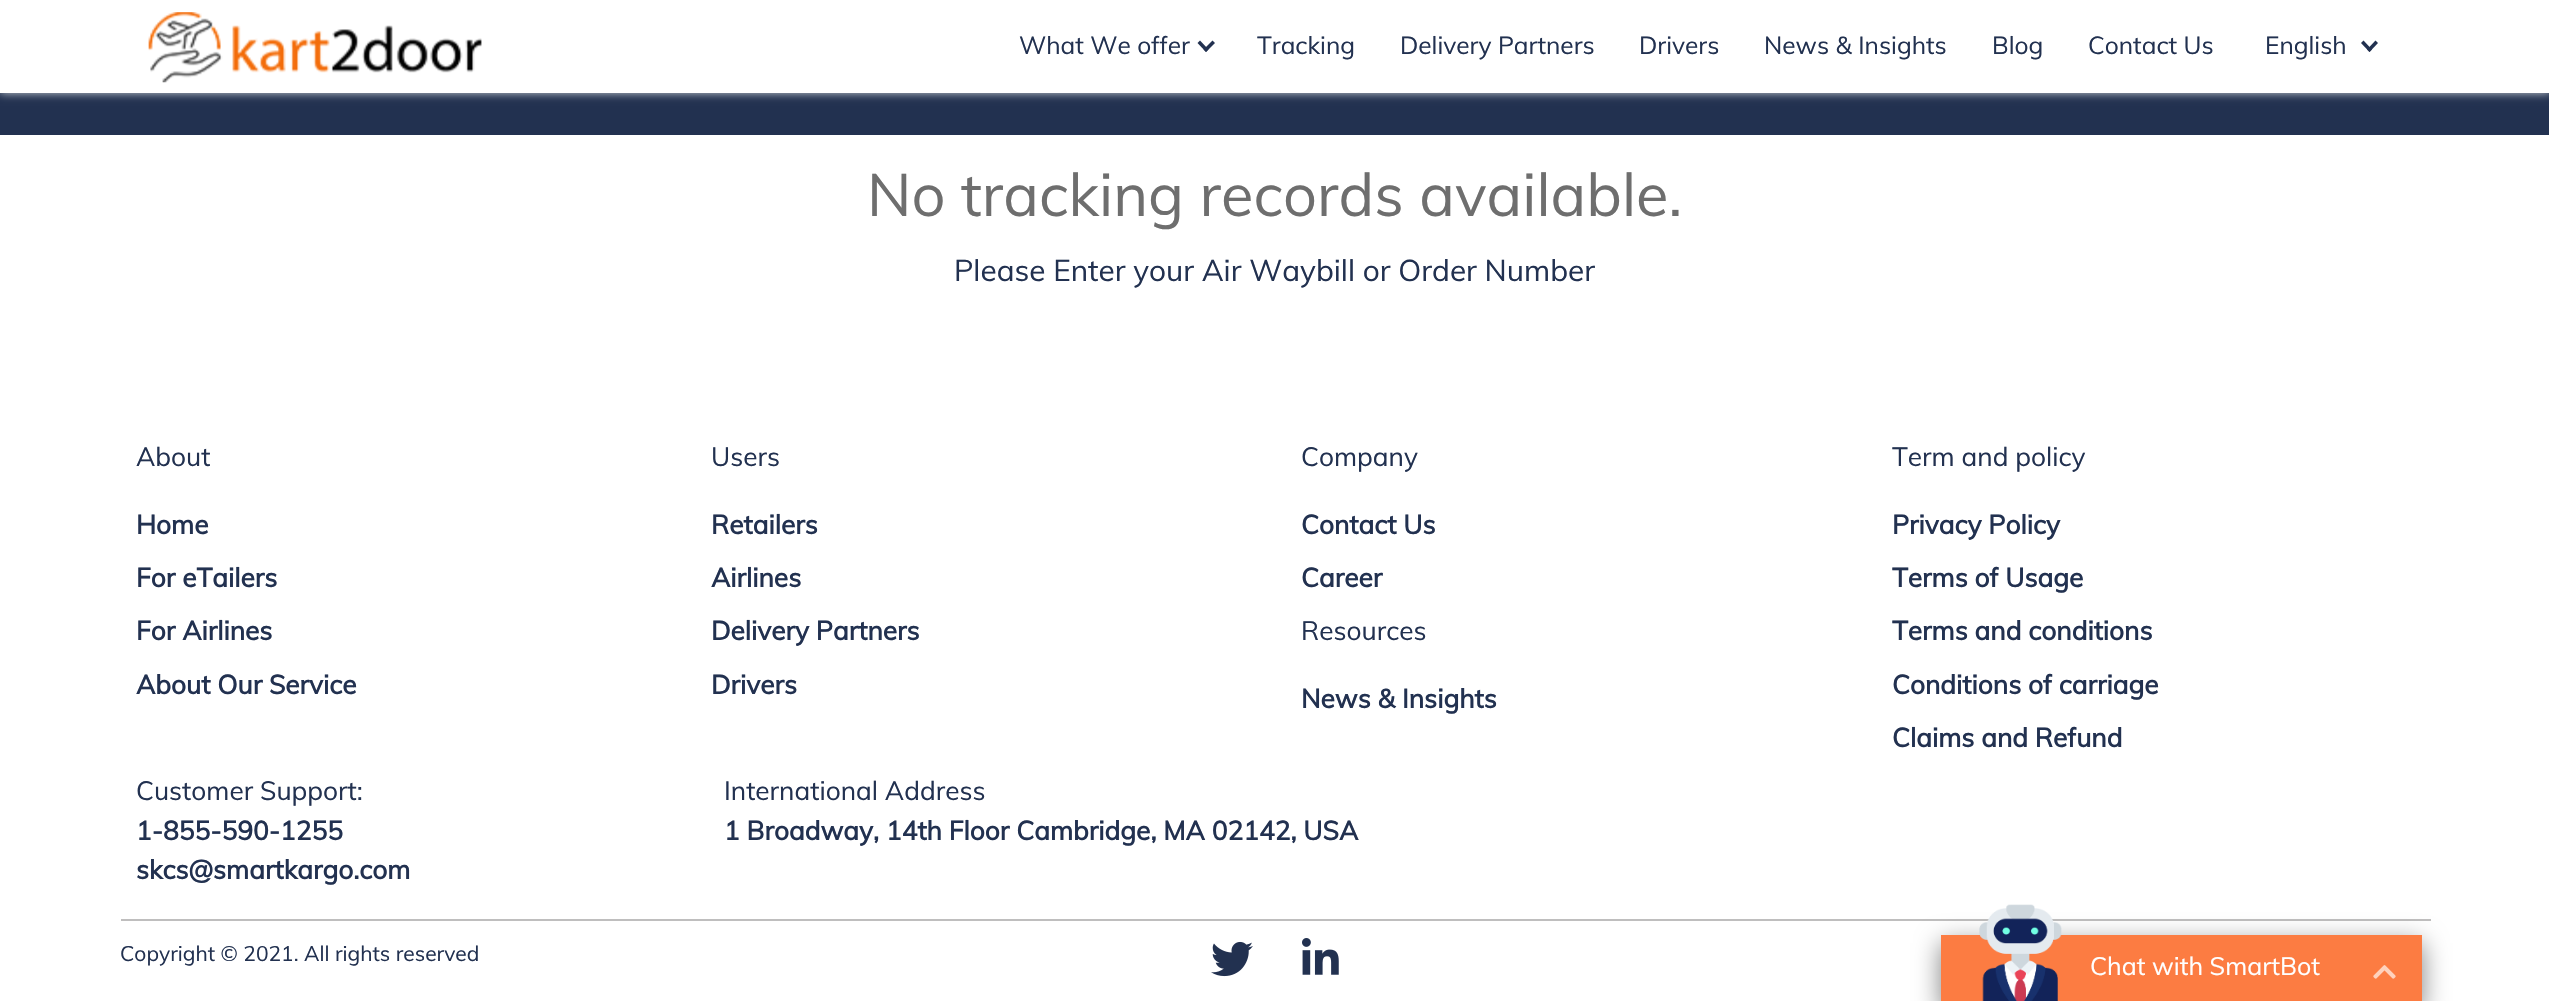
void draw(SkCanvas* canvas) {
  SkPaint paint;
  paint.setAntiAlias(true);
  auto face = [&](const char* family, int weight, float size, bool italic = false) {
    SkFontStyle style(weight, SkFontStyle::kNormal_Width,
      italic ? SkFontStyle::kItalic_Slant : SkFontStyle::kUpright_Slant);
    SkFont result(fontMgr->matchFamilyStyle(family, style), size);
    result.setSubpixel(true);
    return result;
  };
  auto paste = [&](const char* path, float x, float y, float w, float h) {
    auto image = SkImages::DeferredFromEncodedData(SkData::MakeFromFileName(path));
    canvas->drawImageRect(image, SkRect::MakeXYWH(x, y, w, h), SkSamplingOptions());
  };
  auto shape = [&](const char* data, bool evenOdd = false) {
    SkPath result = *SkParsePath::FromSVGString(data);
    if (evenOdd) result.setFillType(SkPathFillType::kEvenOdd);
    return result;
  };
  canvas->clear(0xffffffff);
  paint.setColor(0xff223150);
  canvas->drawRect(SkRect::MakeXYWH(0, 93, 2549, 42), paint);
  paint.setColor(0xffcbd0d4);
  paint.setMaskFilter(SkMaskFilter::MakeBlur(kNormal_SkBlurStyle, 4.5f));
  canvas->drawRect(SkRect::MakeXYWH(0, 0, 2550, 93), paint);
  paint.setMaskFilter(nullptr);
  paint.setColor(0xffffffff);
  canvas->drawRect(SkRect::MakeXYWH(0, 0, 2549, 93), paint);
  paste("img/1.png", 148, 12, 334, 71);
  paint.setColor(0xff223150);
  canvas->drawPath(shape("M1212.5 40.5L1215 43L1206 52L1203.5 49.5Z"), paint);
  canvas->drawPath(shape("M1200 40.5L1208.5 49.5L1206 52L1197.5 43Z"), paint);
  canvas->drawPath(shape("M2375.5 40.5L2378 43L2369.5 52L2367 49.5Z"), paint);
  canvas->drawPath(shape("M2363.5 40.5L2372 49.5L2369.5 52L2361 43Z"), paint);
  paint.setColor(0xffbfbebe);
  canvas->drawRect(SkRect::MakeXYWH(121, 919, 2310, 2), paint);
  paint.setColor(0x80000000);
  paint.setMaskFilter(SkMaskFilter::MakeBlur(kNormal_SkBlurStyle, 13));
  canvas->drawRect(SkRect::MakeXYWH(1941, 943, 481, 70), paint);
  paint.setMaskFilter(nullptr);
  paint.setColor(0xfffc7c42);
  canvas->drawRect(SkRect::MakeXYWH(1941, 935, 481, 66), paint);
  paste("img/2.png", 1979, 904, 83, 97);
  paste("img/3.png", 2373, 965, 23, 14);
  paste("img/4.png", 1211, 941, 42, 36);
  paste("img/5.png", 1302, 938, 37, 37);
  auto f0 = face("Muli", 400, 24.5f);
  paint.setColor(0xff223150);
  {
    const struct { const char* s; float x, y; } items[] = {
      {"What We offer", 1019, 54},
      {"Tracking", 1257, 54},
      {"Delivery Partners", 1400, 54},
      {"Drivers", 1639, 54},
      {"News & Insights", 1764, 54},
      {"Blog", 1992, 54},
      {"Contact Us", 2088, 54},
      {"English", 2265, 54},
    };
    for (auto [s, x, y] : items) {
      canvas->drawString(s, x, y, f0, paint);
    }
  }
  auto f1 = face("Muli", 400, 59.5f);
  paint.setColor(0xff6e6e6e);
  canvas->drawString("No tracking records available.", 867, 216, f1, paint);
  auto f2 = face("Muli", 400, 29.75f);
  paint.setColor(0xff223150);
  canvas->drawString("Please Enter your Air Waybill or Order Number", 954, 281, f2, paint);
  auto f3 = face("Muli", 400, 25);
  paint.setColor(0xffffffff);
  canvas->drawString("Chat with SmartBot", 2090, 975, f3, paint);
  auto f4 = face("Muli", 400, 26.25f);
  paint.setColor(0xff223150);
  canvas->drawString("About", 136, 466, f4, paint);
  auto f5 = face("Muli", 700, 26.25f);
  {
    const struct { const char* s; float x, y; } items[] = {
      {"Home", 136, 534},
      {"For eTailers", 136, 587},
      {"For Airlines", 136, 640},
      {"About Our Service", 136, 694},
    };
    for (auto [s, x, y] : items) {
      canvas->drawString(s, x, y, f5, paint);
    }
  }
  canvas->drawString("Users", 711, 466, f4, paint);
  {
    const struct { const char* s; float x, y; } items[] = {
      {"Retailers", 711, 534},
      {"Airlines", 711, 587},
      {"Delivery Partners", 711, 640},
      {"Drivers", 711, 694},
    };
    for (auto [s, x, y] : items) {
      canvas->drawString(s, x, y, f5, paint);
    }
  }
  canvas->drawString("Company", 1301, 466, f4, paint);
  canvas->drawString("Contact Us", 1301, 534, f5, paint);
  canvas->drawString("Career", 1301, 587, f5, paint);
  canvas->drawString("Resources", 1301, 640, f4, paint);
  canvas->drawString("News & Insights", 1301, 708, f5, paint);
  canvas->drawString("Term and policy", 1892, 466, f4, paint);
  {
    const struct { const char* s; float x, y; } items[] = {
      {"Privacy Policy", 1892, 534},
      {"Terms of Usage", 1892, 587},
      {"Terms and conditions", 1892, 640},
      {"Conditions of carriage", 1892, 694},
      {"Claims and Refund", 1892, 747},
    };
    for (auto [s, x, y] : items) {
      canvas->drawString(s, x, y, f5, paint);
    }
  }
  canvas->drawString("Customer Support:", 136, 800, f4, paint);
  canvas->drawString("1-855-590-1255", 136, 840, f5, paint);
  canvas->drawString("skcs@smartkargo.com", 136, 879, f5, paint);
  canvas->drawString("International Address", 724, 800, f4, paint);
  canvas->drawString("1 Broadway, 14th Floor Cambridge, MA 02142, USA", 724, 840, f5, paint);
  auto f6 = face("Muli", 400, 21);
  canvas->drawString("Copyright © 2021. All rights reserved", 120, 961, f6, paint);
}
